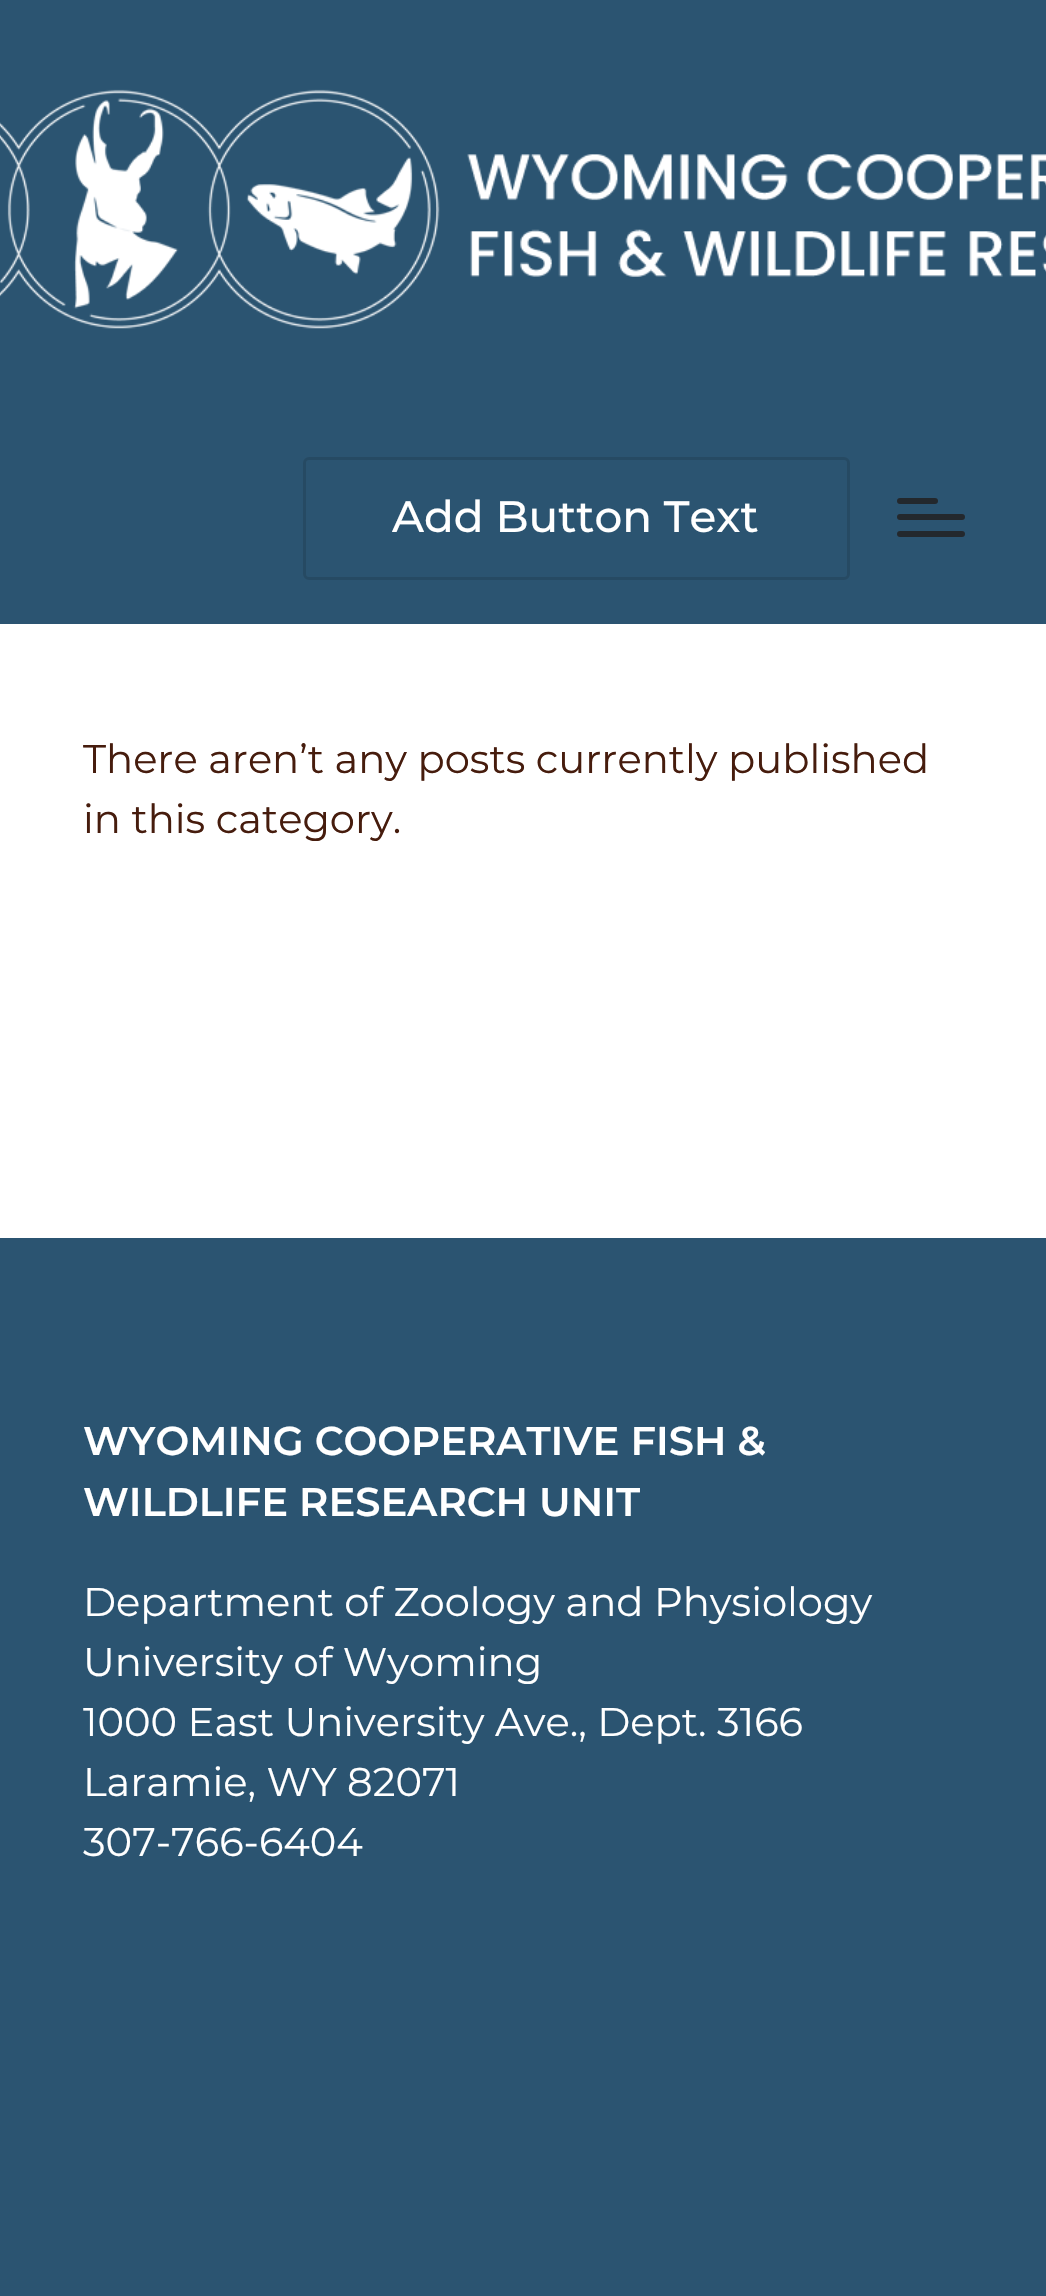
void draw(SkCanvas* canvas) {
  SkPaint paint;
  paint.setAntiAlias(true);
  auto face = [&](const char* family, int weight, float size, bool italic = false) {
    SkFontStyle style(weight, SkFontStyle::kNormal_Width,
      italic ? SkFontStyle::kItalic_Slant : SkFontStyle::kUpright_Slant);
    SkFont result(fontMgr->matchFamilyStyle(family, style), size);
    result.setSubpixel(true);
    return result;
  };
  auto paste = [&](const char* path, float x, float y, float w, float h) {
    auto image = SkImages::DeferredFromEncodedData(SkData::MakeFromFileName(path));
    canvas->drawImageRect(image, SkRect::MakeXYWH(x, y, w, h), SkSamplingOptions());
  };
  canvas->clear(0xffffffff);
  paint.setColor(0xff2b5471);
  canvas->drawRect(SkRect::MakeXYWH(0, 0, 1046, 624), paint);
  paste("img/1.png", 0, 89, 1046, 240);
  paint.setStroke(true);
  paint.setStrokeWidth(3);
  paint.setColor(0xff264a63);
  canvas->drawRoundRect(SkRect::MakeXYWH(304.5f, 458.5f, 544, 120), 4.5f, 4.5f, paint);
  paint.setStroke(false);
  paint.setColor(0xff23282d);
  canvas->drawRoundRect(SkRect::MakeXYWH(897, 514, 68, 6), 3, 3, paint);
  canvas->drawRoundRect(SkRect::MakeXYWH(897, 498, 41, 6), 3, 3, paint);
  canvas->drawRoundRect(SkRect::MakeXYWH(897, 531, 68, 6), 3, 3, paint);
  paint.setColor(0xff2b5471);
  canvas->drawRect(SkRect::MakeXYWH(0, 1238, 1046, 1058), paint);
  auto f0 = face("Montserrat", 500, 43.75f);
  paint.setColor(0xffffffff);
  canvas->drawString("Add Button Text", 392, 532, f0, paint);
  auto f1 = face("Montserrat", 400, 40.1f);
  paint.setColor(0xff461c0d);
  canvas->drawString("There aren’t any posts currently published", 83, 773, f1, paint);
  canvas->drawString("in this category.", 83, 833, f1, paint);
  auto f2 = face("Montserrat", 600, 40.1f);
  paint.setColor(0xffffffff);
  canvas->drawString("WYOMING COOPERATIVE FISH &", 83, 1455, f2, paint);
  canvas->drawString("WILDLIFE RESEARCH UNIT", 83, 1516, f2, paint);
  {
    const struct { const char* s; float x, y; } items[] = {
      {"Department of Zoology and Physiology", 83, 1616},
      {"University of Wyoming", 83, 1676},
      {"1000 East University Ave., Dept. 3166", 83, 1736},
      {"Laramie, WY 82071", 83, 1796},
      {"307-766-6404", 83, 1856},
    };
    for (auto [s, x, y] : items) {
      canvas->drawString(s, x, y, f1, paint);
    }
  }
}
